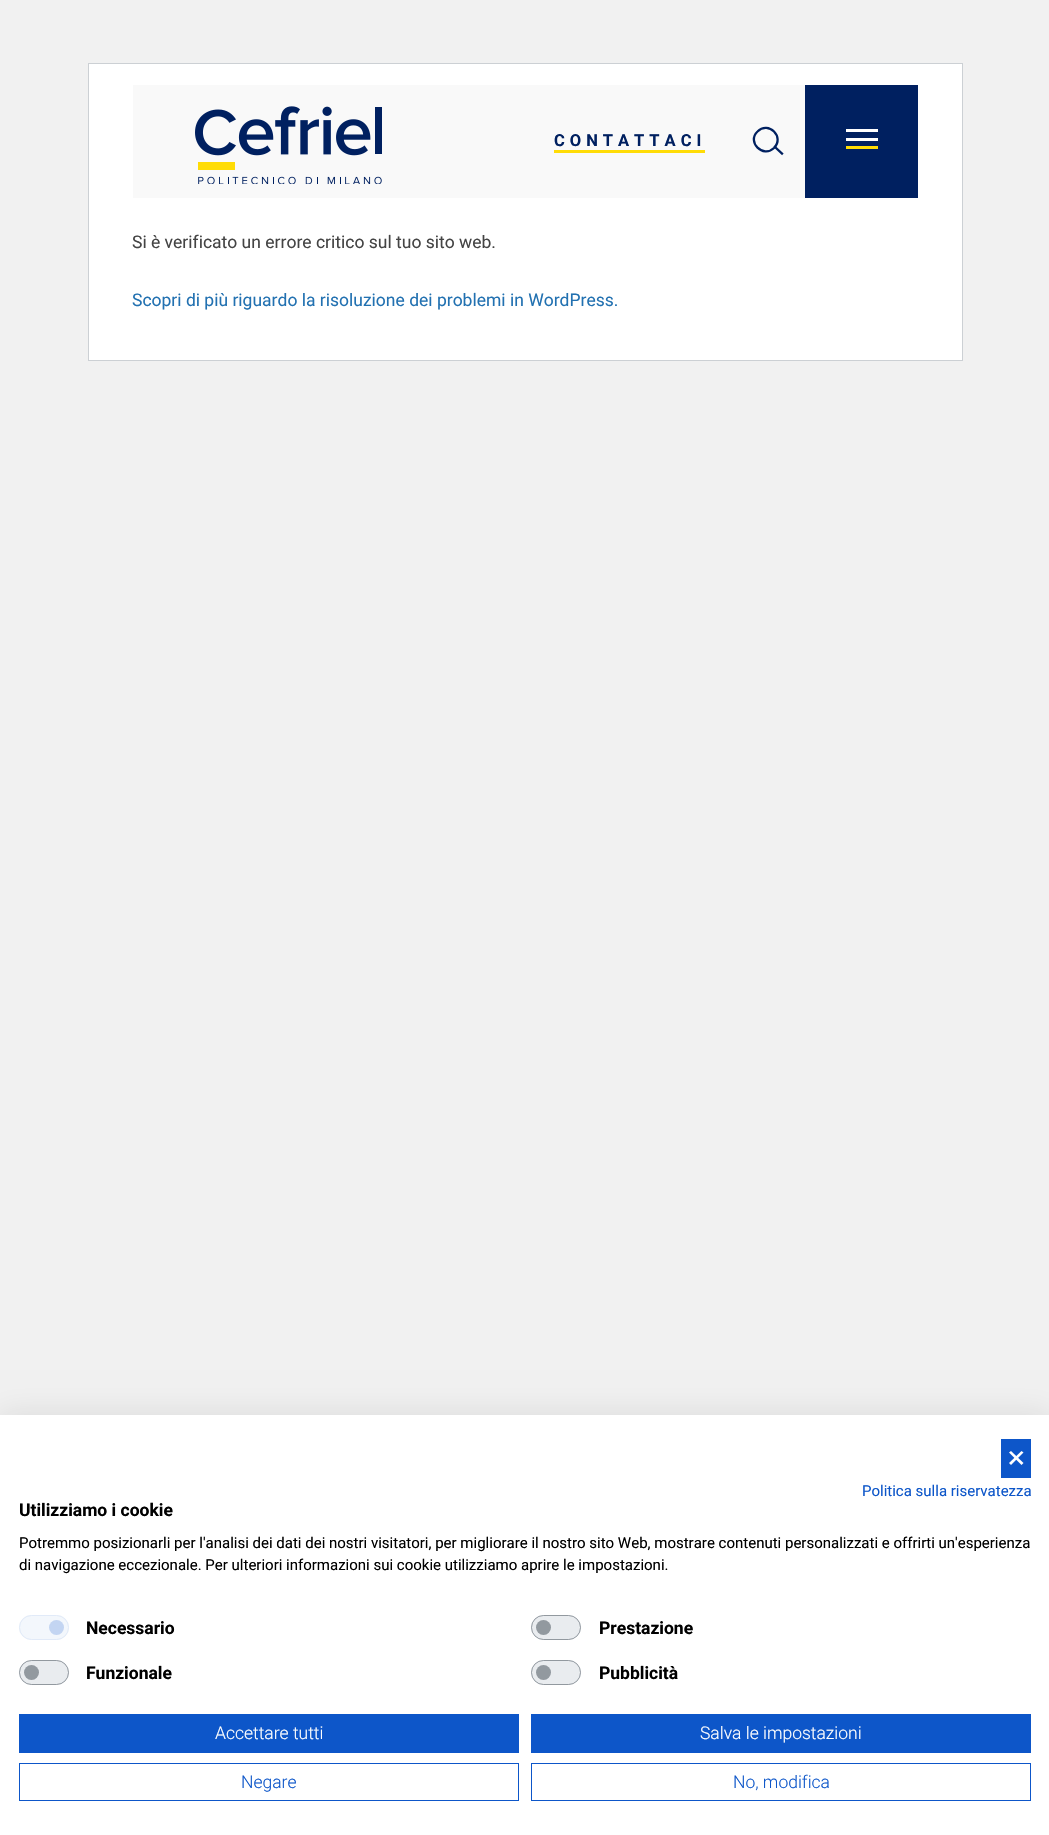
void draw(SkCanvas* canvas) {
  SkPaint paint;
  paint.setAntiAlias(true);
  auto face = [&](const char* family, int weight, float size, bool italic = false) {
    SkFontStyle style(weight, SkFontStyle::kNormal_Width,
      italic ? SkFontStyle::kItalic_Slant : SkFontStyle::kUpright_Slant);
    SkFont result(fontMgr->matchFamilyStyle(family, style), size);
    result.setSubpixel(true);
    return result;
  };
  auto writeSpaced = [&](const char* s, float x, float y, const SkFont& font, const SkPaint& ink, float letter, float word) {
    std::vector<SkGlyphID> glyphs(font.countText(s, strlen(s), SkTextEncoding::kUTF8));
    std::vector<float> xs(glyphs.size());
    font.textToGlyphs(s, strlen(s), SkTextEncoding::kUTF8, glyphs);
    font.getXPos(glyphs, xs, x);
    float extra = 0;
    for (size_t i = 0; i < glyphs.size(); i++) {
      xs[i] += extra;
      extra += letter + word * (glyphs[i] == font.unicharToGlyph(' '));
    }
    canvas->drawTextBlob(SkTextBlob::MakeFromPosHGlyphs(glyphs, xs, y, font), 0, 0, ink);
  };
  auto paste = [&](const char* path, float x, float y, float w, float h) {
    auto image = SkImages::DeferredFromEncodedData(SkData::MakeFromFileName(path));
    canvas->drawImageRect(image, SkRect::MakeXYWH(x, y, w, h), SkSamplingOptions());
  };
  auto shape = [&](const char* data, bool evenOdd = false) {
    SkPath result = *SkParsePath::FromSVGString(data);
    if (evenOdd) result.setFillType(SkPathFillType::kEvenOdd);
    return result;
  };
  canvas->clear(0xfff1f1f1);
  paint.setColor(0xffffffff);
  canvas->drawRect(SkRect::MakeXYWH(88.5f, 63.5f, 874, 297), paint);
  paint.setStroke(true);
  paint.setStrokeWidth(1);
  paint.setColor(0xffccd0d4);
  canvas->drawRect(SkRect::MakeXYWH(88.5f, 63.5f, 874, 297), paint);
  paint.setStroke(false);
  paint.setColor(0xfff9f9f9);
  canvas->drawRect(SkRect::MakeXYWH(133, 85, 672, 113), paint);
  paste("img/1.png", 195, 106, 187, 78);
  paint.setColor(0xffffdc06);
  canvas->drawRect(SkRect::MakeXYWH(554, 150, 151, 3), paint);
  paint.setStroke(true);
  paint.setStrokeWidth(2.3f);
  paint.setColor(0xff002060);
  canvas->drawPath(shape("M757.5 131.5C768.5 120.5 785 137 774 148C763 158.5 746.5 142 757.5 131.5Z"), paint);
  paint.setStrokeCap(SkPaint::kSquare_Cap);
  canvas->drawPath(shape("M775 147L782 153.5"), paint);
  paint.setStroke(false);
  {
    const struct { float x, y, w, h; SkColor color; } items[] = {
      {805, 85, 113, 113, 0xff002060},
      {846, 129, 32, 3, 0xffffffff},
      {846, 138, 32, 3, 0xffffffff},
      {846, 146, 32, 3, 0xffffdc06},
    };
    for (auto [x, y, w, h, color] : items) {
      paint.setColor(color);
      canvas->drawRect(SkRect::MakeXYWH(x, y, w, h), paint);
    }
  }
  paint.setColor(0x1a000000);
  paint.setMaskFilter(SkMaskFilter::MakeBlur(kNormal_SkBlurStyle, 15));
  canvas->drawRect(SkRect::MakeXYWH(0, 1415, 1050, 420), paint);
  paint.setMaskFilter(nullptr);
  paint.setColor(0xffffffff);
  canvas->drawRect(SkRect::MakeXYWH(0, 1415, 1049, 420), paint);
  paint.setColor(0xff0d56c9);
  canvas->drawRect(SkRect::MakeXYWH(1001, 1439, 30, 39), paint);
  paint.setColor(0xffffffff);
  canvas->drawPath(shape("M1021.5 1451L1023.5 1452.5L1011 1465L1009 1463Z"), paint);
  canvas->drawPath(shape("M1009 1452.5L1011 1451L1023.5 1463L1021.5 1465Z"), paint);
  paint.setColor(0xfff3f7fc);
  canvas->drawRoundRect(SkRect::MakeXYWH(19, 1615, 50, 25), 12.5f, 12.5f, paint);
  paint.setColor(0xffc3d5f2);
  canvas->drawCircle(56.5f, 1627.5f, 7.5f, paint);
  paint.setStroke(true);
  paint.setStrokeWidth(1);
  paint.setStrokeCap(SkPaint::kButt_Cap);
  paint.setColor(0xffe1eaf8);
  canvas->drawRoundRect(SkRect::MakeXYWH(19.5f, 1615.5f, 49, 24), 12, 12, paint);
  paint.setStroke(false);
  paint.setColor(0xffe9ecef);
  canvas->drawRoundRect(SkRect::MakeXYWH(531, 1615, 50, 25), 12.5f, 12.5f, paint);
  paint.setColor(0xff92999f);
  canvas->drawCircle(543.5f, 1627.5f, 7.5f, paint);
  paint.setStroke(true);
  paint.setColor(0xb36c757d);
  canvas->drawRoundRect(SkRect::MakeXYWH(531.5f, 1615.5f, 49, 24), 12, 12, paint);
  paint.setStroke(false);
  paint.setColor(0xffe9ecef);
  canvas->drawRoundRect(SkRect::MakeXYWH(19, 1660, 50, 25), 12.5f, 12.5f, paint);
  paint.setColor(0xff92999f);
  canvas->drawCircle(31.5f, 1672.5f, 7.5f, paint);
  paint.setStroke(true);
  paint.setColor(0xb36c757d);
  canvas->drawRoundRect(SkRect::MakeXYWH(19.5f, 1660.5f, 49, 24), 12, 12, paint);
  paint.setStroke(false);
  paint.setColor(0xffe9ecef);
  canvas->drawRoundRect(SkRect::MakeXYWH(531, 1660, 50, 25), 12.5f, 12.5f, paint);
  paint.setColor(0xff92999f);
  canvas->drawCircle(543.5f, 1672.5f, 7.5f, paint);
  paint.setStroke(true);
  paint.setColor(0xb36c757d);
  canvas->drawRoundRect(SkRect::MakeXYWH(531.5f, 1660.5f, 49, 24), 12, 12, paint);
  paint.setStroke(false);
  paint.setColor(0xff0d56c9);
  canvas->drawRect(SkRect::MakeXYWH(19, 1714, 500, 39), paint);
  canvas->drawRect(SkRect::MakeXYWH(531, 1714, 500, 39), paint);
  paint.setStroke(true);
  canvas->drawRect(SkRect::MakeXYWH(19.5f, 1763.5f, 499, 37), paint);
  canvas->drawRect(SkRect::MakeXYWH(531.5f, 1763.5f, 499, 37), paint);
  auto f0 = face("Roboto", 700, 16.5f);
  paint.setStroke(false);
  paint.setColor(0xff002060);
  writeSpaced("CONTATTACI", 554, 146, f0, paint, 5, 0);
  auto f1 = face("Roboto", 400, 17.5f);
  paint.setColor(0xff444444);
  canvas->drawString("Si è verificato un errore critico sul tuo sito web.", 132, 248, f1, paint);
  paint.setColor(0xff2271b1);
  canvas->drawString("Scopri di più riguardo la risoluzione dei problemi in WordPress.", 132, 306, f1, paint);
  auto f2 = face("Roboto", 400, 15);
  paint.setColor(0xff0d56c9);
  canvas->drawString("Politica sulla riservatezza", 862, 1496, f2, paint);
  auto f3 = face("Roboto", 700, 17.5f);
  paint.setColor(0xff000000);
  canvas->drawString("Utilizziamo i cookie", 19, 1516, f3, paint);
  canvas->drawString("Potremmo posizionarli per l'analisi dei dati dei nostri visitatori, per migliorare il nostro sito Web, mostrare contenuti personalizzati e offrirti un'esperienza", 19, 1548, f2, paint);
  canvas->drawString("di navigazione eccezionale. Per ulteriori informazioni sui cookie utilizziamo aprire le impostazioni.", 19, 1570, f2, paint);
  {
    const struct { const char* s; float x, y; } items[] = {
      {"Necessario", 86, 1634},
      {"Prestazione", 599, 1634},
      {"Funzionale", 86, 1679},
      {"Pubblicità", 599, 1679},
    };
    for (auto [s, x, y] : items) {
      canvas->drawString(s, x, y, f3, paint);
    }
  }
  auto f4 = face("Roboto", 300, 17.5f);
  paint.setColor(0xffffffff);
  canvas->drawString("Accettare tutti", 215, 1739, f4, paint);
  canvas->drawString("Salva le impostazioni", 700, 1739, f4, paint);
  paint.setColor(0xff0d56c9);
  canvas->drawString("Negare", 241, 1788, f4, paint);
  canvas->drawString("No, modifica", 733, 1788, f4, paint);
}
